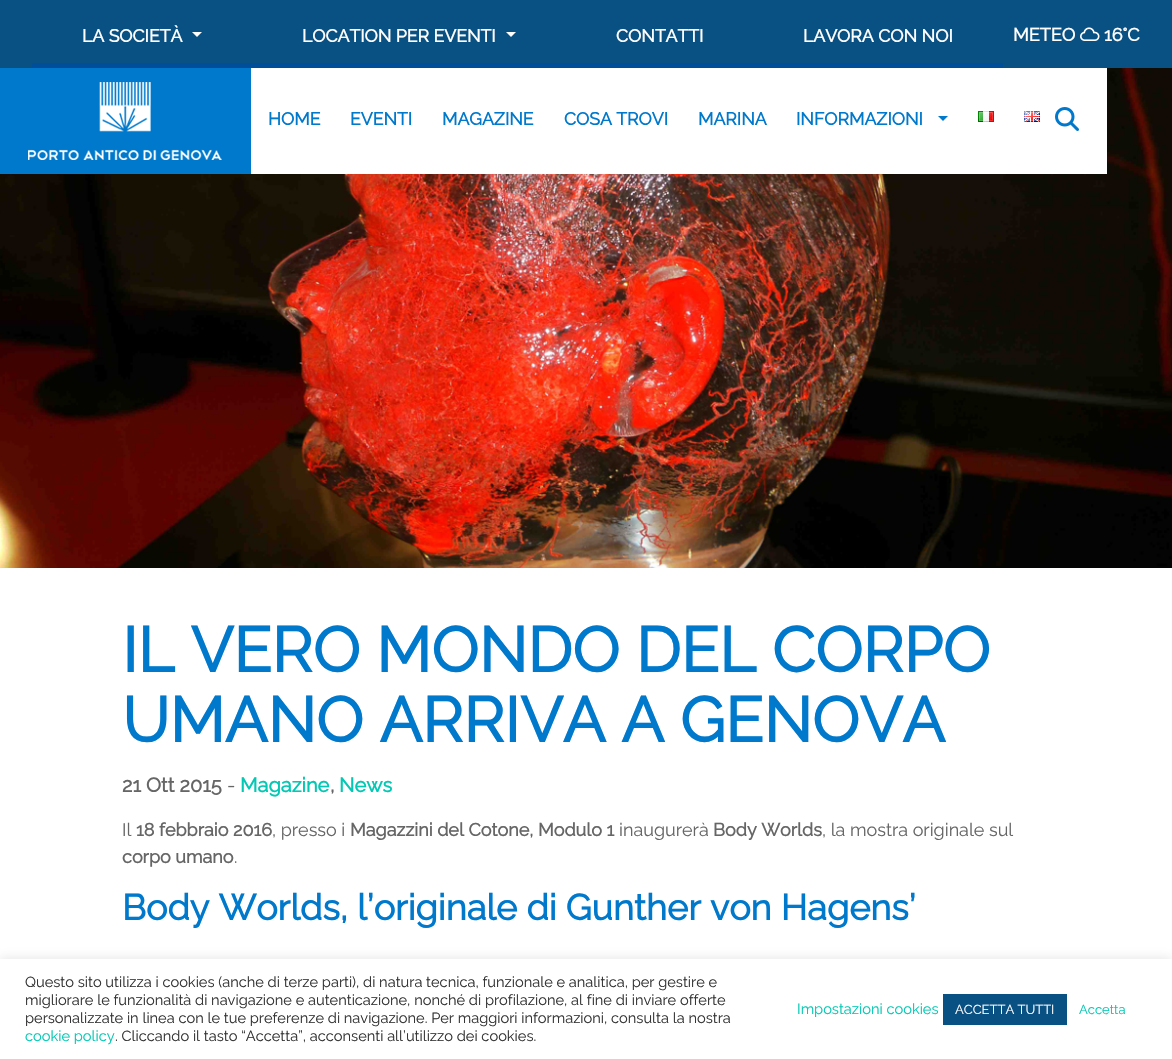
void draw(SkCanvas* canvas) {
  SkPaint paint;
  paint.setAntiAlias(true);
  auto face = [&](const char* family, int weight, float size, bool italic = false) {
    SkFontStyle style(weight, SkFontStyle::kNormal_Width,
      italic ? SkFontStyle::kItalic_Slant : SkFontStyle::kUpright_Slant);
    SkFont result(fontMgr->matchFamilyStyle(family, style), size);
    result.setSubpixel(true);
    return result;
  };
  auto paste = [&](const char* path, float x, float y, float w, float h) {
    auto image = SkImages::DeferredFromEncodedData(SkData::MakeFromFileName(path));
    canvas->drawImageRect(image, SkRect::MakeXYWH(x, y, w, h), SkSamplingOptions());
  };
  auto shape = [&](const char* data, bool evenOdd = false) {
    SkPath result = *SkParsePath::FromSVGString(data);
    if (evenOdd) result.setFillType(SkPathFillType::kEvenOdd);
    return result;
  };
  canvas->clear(0xffffffff);
  paint.setColor(0xff095083);
  canvas->drawRect(SkRect::MakeXYWH(0, 0, 1172, 68), paint);
  paint.setColor(0xff004d9a);
  canvas->drawRect(SkRect::MakeXYWH(32, 63, 534, 5), paint);
  paint.setColor(0xffffffff);
  canvas->drawPath(shape("M192 32H202L197 37Z"), paint);
  canvas->drawPath(shape("M506 32H516L511 37Z"), paint);
  paint.setColor(0xff004d9a);
  canvas->drawRect(SkRect::MakeXYWH(566, 63, 437, 5), paint);
  paste("img/1.png", 1080, 27, 20, 14);
  paste("img/6.png", 0, 68, 1172, 500);
  paint.setColor(0xffffffff);
  canvas->drawRect(SkRect::MakeXYWH(251, 68, 856, 106), paint);
  paint.setColor(0xff0079cc);
  canvas->drawRect(SkRect::MakeXYWH(0, 68, 251, 106), paint);
  paste("img/2.png", 28, 82, 194, 78);
  canvas->drawPath(shape("M938 116H948L943 121Z"), paint);
  paste("img/3.png", 978, 111, 16, 11);
  paste("img/4.png", 1024, 111, 16, 11);
  paste("img/5.png", 1055, 107, 24, 24);
  paint.setColor(0x4dacabab);
  paint.setMaskFilter(SkMaskFilter::MakeBlur(kNormal_SkBlurStyle, 5));
  canvas->drawRect(SkRect::MakeXYWH(0, 958, 1172, 100), paint);
  paint.setMaskFilter(nullptr);
  paint.setColor(0xffffffff);
  canvas->drawRect(SkRect::MakeXYWH(0, 959, 1172, 100), paint);
  paint.setColor(0xff095083);
  canvas->drawRect(SkRect::MakeXYWH(943, 994, 124, 31), paint);
  auto f0 = face("Raleway", 700, 17.6f);
  paint.setColor(0xffffffff);
  {
    const struct { const char* s; float x, y; } items[] = {
      {"LA SOCIETÀ", 82, 42},
      {"LOCATION PER EVENTI", 302, 42},
      {"CONTATTI", 616, 42},
      {"LAVORA CON NOI", 803, 42},
    };
    for (auto [s, x, y] : items) {
      canvas->drawString(s, x, y, f0, paint);
    }
  }
  auto f1 = face("Raleway", 700, 18);
  canvas->drawString("METEO", 1013, 41, f1, paint);
  canvas->drawString("16°C", 1104, 41, f1, paint);
  paint.setColor(0xff0079cc);
  {
    const struct { const char* s; float x, y; } items[] = {
      {"HOME", 268, 125},
      {"EVENTI", 350, 125},
      {"MAGAZINE", 442, 125},
      {"COSA TROVI", 564, 125},
      {"MARINA", 698, 125},
      {"INFORMAZIONI", 796, 125},
    };
    for (auto [s, x, y] : items) {
      canvas->drawString(s, x, y, f0, paint);
    }
  }
  auto f2 = face("Raleway", 700, 63);
  canvas->drawString("IL VERO MONDO DEL CORPO", 122, 672, f2, paint);
  canvas->drawString("UMANO ARRIVA A GENOVA", 122, 742, f2, paint);
  auto f3 = face("Raleway", 700, 20);
  paint.setColor(0xff666666);
  canvas->drawString("21 Ott 2015", 122, 792, f3, paint);
  auto f4 = face("Raleway", 100, 20);
  canvas->drawString("-", 227, 792, f4, paint);
  paint.setColor(0xff02c8b4);
  canvas->drawString("Magazine", 240, 792, f3, paint);
  canvas->drawString("News", 339, 792, f3, paint);
  paint.setColor(0xff666666);
  canvas->drawString(",", 330, 792, f3, paint);
  auto f5 = face("Raleway", 100, 18);
  canvas->drawString("Il", 122, 836, f5, paint);
  canvas->drawString("18 febbraio 2016", 136, 836, f1, paint);
  canvas->drawString(", presso i", 272, 836, f5, paint);
  canvas->drawString("Magazzini del Cotone, Modulo 1", 350, 836, f1, paint);
  canvas->drawString("inaugurerà", 619, 836, f5, paint);
  canvas->drawString("Body Worlds", 713, 836, f1, paint);
  canvas->drawString(", la mostra originale sul", 822, 836, f5, paint);
  canvas->drawString("corpo umano", 122, 863, f1, paint);
  canvas->drawString(".", 234, 863, f5, paint);
  auto f6 = face("Raleway", 700, 36);
  paint.setColor(0xff0079cc);
  canvas->drawString("Body Worlds, l’originale di Gunther von Hagens’", 122, 920, f6, paint);
  auto f7 = face("Raleway", 100, 14.65f);
  paint.setColor(0xff333333);
  {
    const struct { const char* s; float x, y; } items[] = {
      {"Questo sito utilizza i cookies (anche di terze parti), di natura tecnica, funzionale e analitica, per gestire e", 25, 987},
      {"migliorare le funzionalità di navigazione e autenticazione, nonché di profilazione, al fine di inviare offerte", 25, 1005},
      {"personalizzate in linea con le tue preferenze di navigazione. Per maggiori informazioni, consulta la nostra", 25, 1023},
    };
    for (auto [s, x, y] : items) {
      canvas->drawString(s, x, y, f7, paint);
    }
  }
  paint.setColor(0xff02c8b4);
  canvas->drawString("cookie policy", 25, 1041, f7, paint);
  paint.setColor(0xff333333);
  canvas->drawString(". Cliccando il tasto “Accetta”, acconsenti all’utilizzo dei cookies.", 115, 1041, f7, paint);
  paint.setColor(0xff02c8b4);
  canvas->drawString("Impostazioni cookies", 797, 1014, f7, paint);
  auto f8 = face("Raleway", 100, 13);
  paint.setColor(0xffffffff);
  canvas->drawString("ACCETTA TUTTI", 955, 1014, f8, paint);
  paint.setColor(0xff02c8b4);
  canvas->drawString("Accetta", 1079, 1014, f8, paint);
}
